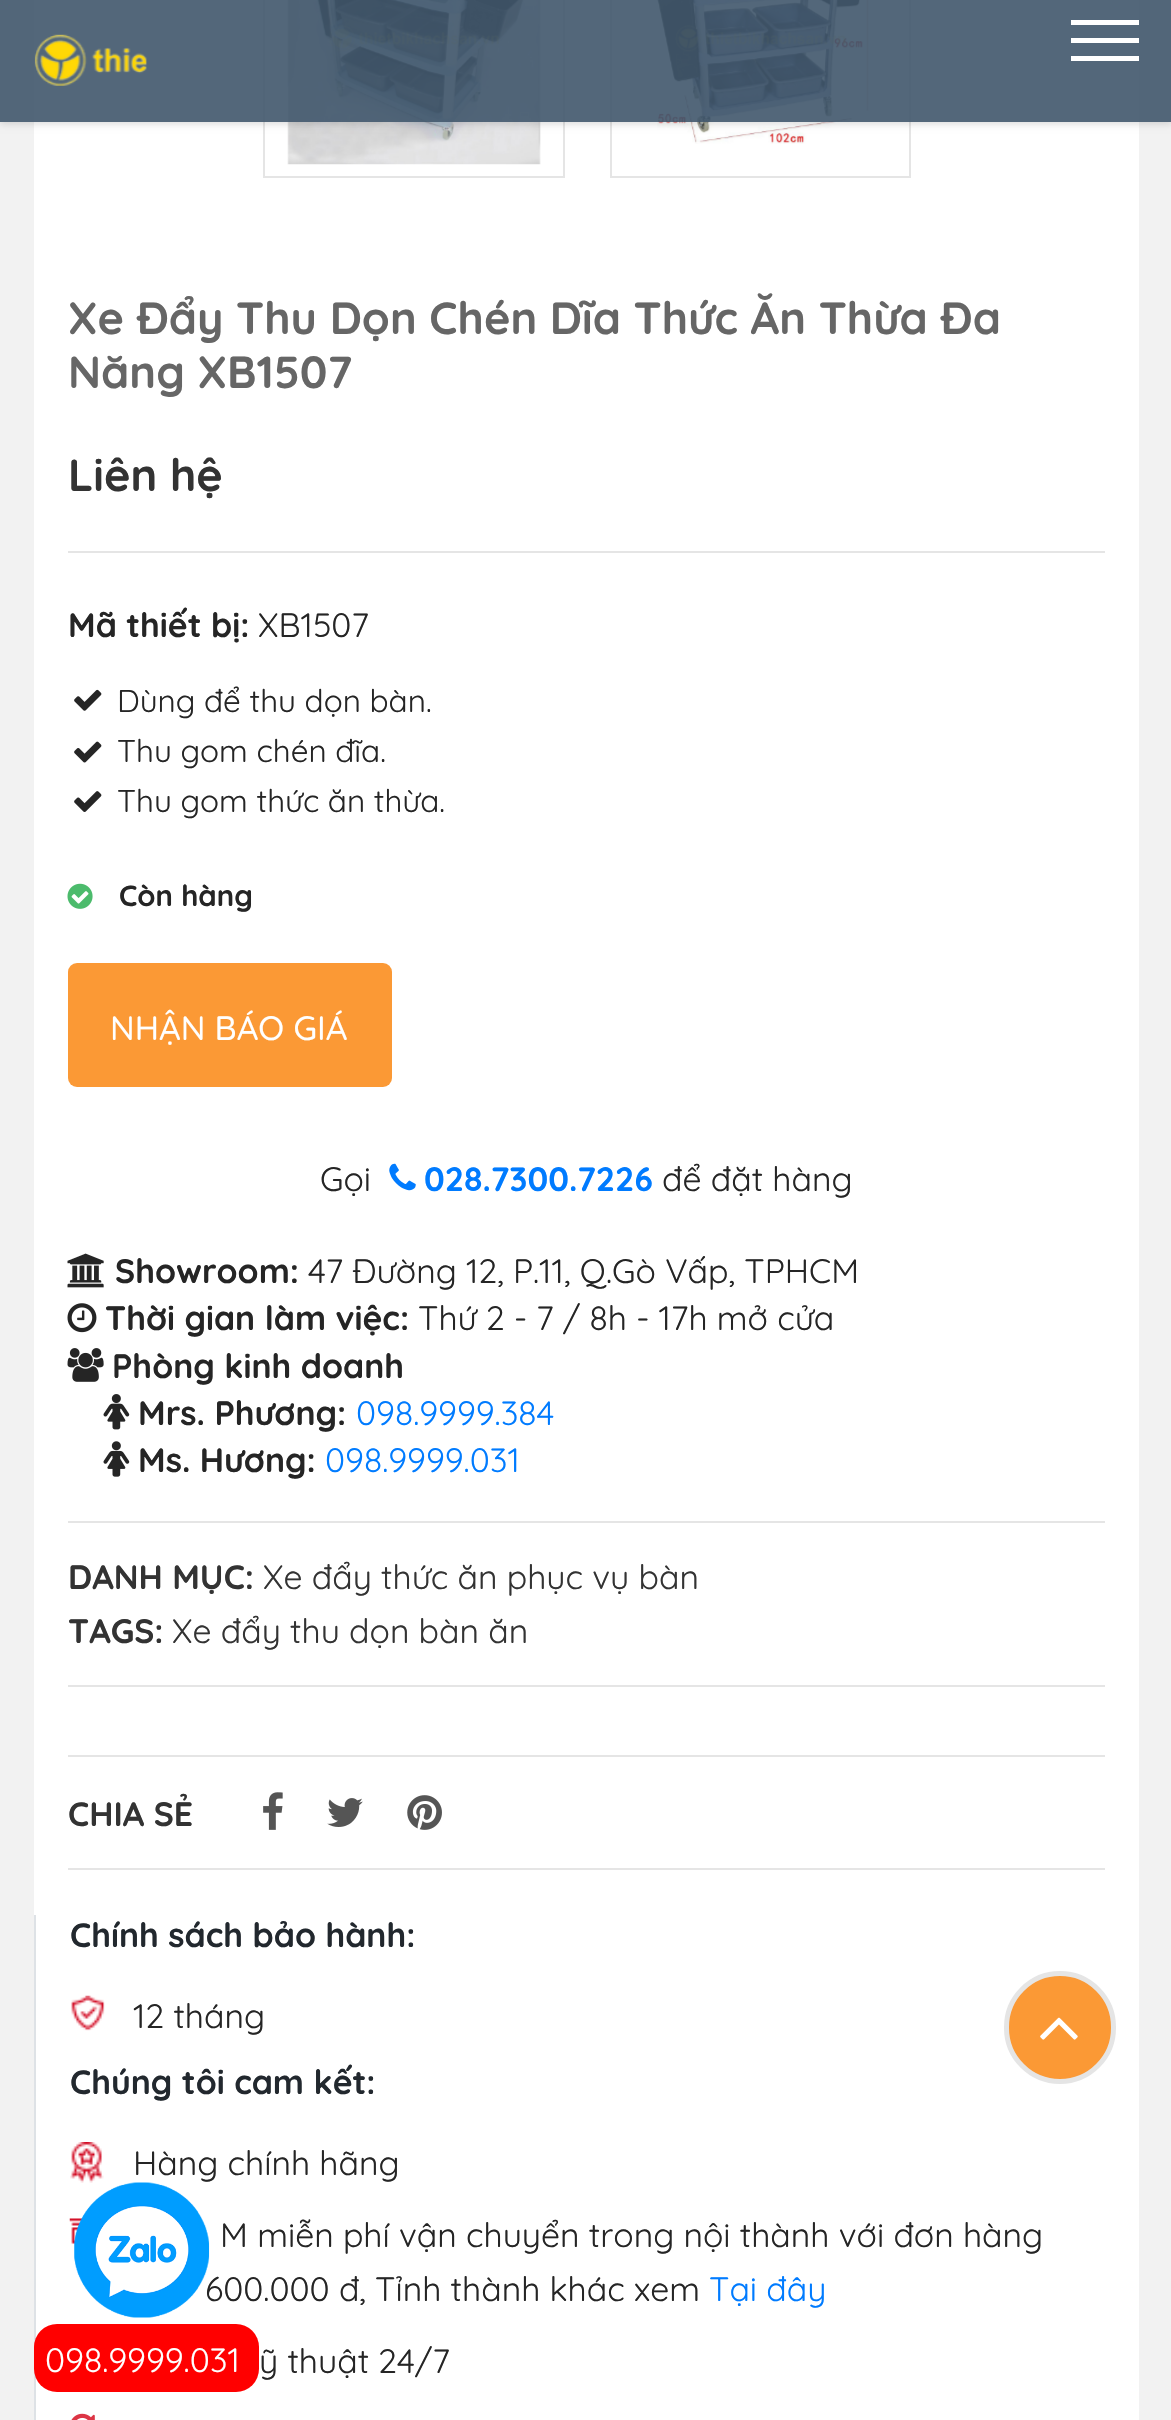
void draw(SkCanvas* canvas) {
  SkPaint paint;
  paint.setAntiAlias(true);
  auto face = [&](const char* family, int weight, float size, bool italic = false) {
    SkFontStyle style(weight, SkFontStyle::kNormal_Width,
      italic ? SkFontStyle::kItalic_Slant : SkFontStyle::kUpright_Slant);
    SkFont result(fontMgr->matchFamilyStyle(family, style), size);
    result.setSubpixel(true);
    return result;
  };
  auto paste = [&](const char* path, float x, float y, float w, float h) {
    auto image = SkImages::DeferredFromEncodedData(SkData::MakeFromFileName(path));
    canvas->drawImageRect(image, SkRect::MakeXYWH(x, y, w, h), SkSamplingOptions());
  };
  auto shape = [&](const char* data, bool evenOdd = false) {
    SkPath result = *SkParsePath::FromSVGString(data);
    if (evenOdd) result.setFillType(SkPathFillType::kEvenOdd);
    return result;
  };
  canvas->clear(0xfff2f2f2);
  paint.setColor(0xffffffff);
  canvas->drawRect(SkRect::MakeXYWH(34, 0, 1105, 2420), paint);
  paint.setStroke(true);
  paint.setStrokeWidth(2);
  paint.setColor(0xffe5e5e5);
  canvas->drawRect(SkRect::MakeXYWH(264, -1, 300, 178), paint);
  paste("img/2.png", 287, 0, 254, 165);
  canvas->drawRect(SkRect::MakeXYWH(611, -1, 299, 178), paint);
  paste("img/3.png", 657, 0, 213, 144);
  canvas->save();
  canvas->clipPath(shape("M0 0H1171V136H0ZM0 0H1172V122H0Z", true), true);
  paint.setStroke(false);
  paint.setColor(0x24000000);
  paint.setMaskFilter(SkMaskFilter::MakeBlur(kNormal_SkBlurStyle, 3.5f));
  canvas->drawRect(SkRect::MakeXYWH(0, 2, 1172, 122), paint);
  paint.setMaskFilter(nullptr);
  canvas->restore();
  paint.setColor(0xe640576c);
  canvas->drawRect(SkRect::MakeXYWH(0, 0, 1171, 122), paint);
  paste("img/1.png", 34, 34, 113, 52);
  {
    const struct { float x, y, w, h; SkColor color; } items[] = {
      {1071, 38, 68, 5, 0xffffffff},
      {1071, 20, 68, 5, 0xffffffff},
      {1071, 56, 68, 5, 0xffffffff},
      {68, 551, 1037, 2, 0xffe5e5e5},
    };
    for (auto [x, y, w, h, color] : items) {
      paint.setColor(color);
      canvas->drawRect(SkRect::MakeXYWH(x, y, w, h), paint);
    }
  }
  paste("img/4.png", 74, 689, 28, 22);
  paste("img/5.png", 74, 741, 28, 22);
  paste("img/6.png", 74, 791, 28, 21);
  paste("img/7.png", 67, 883, 26, 26);
  paint.setColor(0xfffb9935);
  canvas->drawRoundRect(SkRect::MakeXYWH(68, 963, 324, 124), 9, 9, paint);
  paste("img/8.png", 389, 1163, 27, 28);
  paste("img/9.png", 67, 1253, 37, 35);
  paste("img/10.png", 67, 1303, 30, 30);
  paste("img/11.png", 67, 1348, 37, 34);
  paste("img/12.png", 103, 1394, 27, 36);
  paste("img/13.png", 103, 1441, 27, 36);
  {
    const struct { float x, y, w, h; SkColor color; } items[] = {
      {68, 1521, 1037, 2, 0xffe5e5e5},
      {68, 1685, 1037, 2, 0xffe5e5e5},
      {68, 1755, 1037, 2, 0xffe5e5e5},
      {68, 1868, 1037, 2, 0xffe5e5e5},
    };
    for (auto [x, y, w, h, color] : items) {
      paint.setColor(color);
      canvas->drawRect(SkRect::MakeXYWH(x, y, w, h), paint);
    }
  }
  paste("img/14.png", 263, 1792, 20, 38);
  paste("img/15.png", 327, 1798, 36, 29);
  paste("img/16.png", 407, 1795, 35, 35);
  paint.setColor(0xffdee2e6);
  canvas->drawRect(SkRect::MakeXYWH(34, 1915, 2, 505), paint);
  paste("img/17.png", 71, 1995, 34, 36);
  paste("img/18.png", 70, 2142, 34, 41);
  paste("img/19.png", 69, 2218, 14, 26);
  paste("img/20.png", 71, 2413, 24, 7);
  paint.setColor(0xfffb9935);
  canvas->drawRoundRect(SkRect::MakeXYWH(1006.5f, 1973.5f, 107, 108), 53.5f, 53.5f, paint);
  paint.setStroke(true);
  paint.setStrokeWidth(5);
  paint.setColor(0xffe5e5e5);
  canvas->drawRoundRect(SkRect::MakeXYWH(1006.5f, 1973.5f, 107, 108), 53.5f, 53.5f, paint);
  paste("img/21.png", 1040, 2017, 38, 23);
  paint.setStroke(false);
  paint.setColor(0xffff0000);
  canvas->drawRoundRect(SkRect::MakeXYWH(34, 2324, 225, 68), 23, 23, paint);
  auto f0 = face("Quicksand", 700, 45);
  paint.setColor(0xff666666);
  canvas->drawString("Xe Đẩy Thu Dọn Chén Dĩa Thức Ăn Thừa Đa", 68, 334, f0, paint);
  canvas->drawString("Năng XB1507", 68, 388, f0, paint);
  paint.setColor(0xff333333);
  canvas->drawString("Liên hệ", 68, 491, f0, paint);
  auto f1 = face("Quicksand", 700, 33.75f);
  paint.setColor(0xff252525);
  canvas->drawString("Mã thiết bị:", 68, 637, f1, paint);
  auto f2 = face("Quicksand", 400, 33.75f);
  canvas->drawString("XB1507", 258, 637, f2, paint);
  auto f3 = face("Quicksand", 400, 31.5f);
  {
    const struct { const char* s; float x, y; } items[] = {
      {"Dùng để thu dọn bàn.", 117, 712},
      {"Thu gom chén đĩa.", 117, 762},
      {"Thu gom thức ăn thừa.", 117, 812},
    };
    for (auto [s, x, y] : items) {
      canvas->drawString(s, x, y, f3, paint);
    }
  }
  auto f4 = face("Quicksand", 700, 29.25f);
  canvas->drawString("Còn hàng", 119, 906, f4, paint);
  auto f5 = face("Quicksand", 500, 33.75f);
  paint.setColor(0xffffffff);
  canvas->drawString("NHẬN BÁO GIÁ", 110, 1040, f5, paint);
  paint.setColor(0xff252525);
  canvas->drawString("Gọi", 320, 1191, f2, paint);
  paint.setColor(0xff007bff);
  canvas->drawString("028.7300.7226", 424, 1191, f1, paint);
  paint.setColor(0xff252525);
  canvas->drawString("để đặt hàng", 662, 1191, f2, paint);
  canvas->drawString("Showroom:", 115, 1283, f1, paint);
  canvas->drawString("47 Đường 12, P.11, Q.Gò Vấp, TPHCM", 308, 1283, f2, paint);
  canvas->drawString("Thời gian làm việc:", 105, 1330, f1, paint);
  canvas->drawString("Thứ 2 - 7 / 8h - 17h mở cửa", 418, 1330, f2, paint);
  canvas->drawString("Phòng kinh doanh", 112, 1378, f1, paint);
  canvas->drawString("Mrs. Phương:", 138, 1425, f1, paint);
  paint.setColor(0xff007bff);
  canvas->drawString("098.9999.384", 356, 1425, f2, paint);
  paint.setColor(0xff252525);
  canvas->drawString("Ms. Hương:", 138, 1472, f1, paint);
  paint.setColor(0xff007bff);
  canvas->drawString("098.9999.031", 325, 1472, f2, paint);
  paint.setColor(0xff333333);
  canvas->drawString("DANH MỤC:", 68, 1589, f1, paint);
  canvas->drawString("Xe đẩy thức ăn phục vụ bàn", 263, 1589, f2, paint);
  canvas->drawString("TAGS:", 68, 1643, f1, paint);
  canvas->drawString("Xe đẩy thu dọn bàn ăn", 172, 1643, f2, paint);
  canvas->drawString("CHIA SẺ", 68, 1826, f1, paint);
  paint.setColor(0xff22282e);
  canvas->drawString("Chính sách bảo hành:", 70, 1947, f1, paint);
  paint.setColor(0xff252525);
  canvas->drawString("12 tháng", 133, 2028, f2, paint);
  paint.setColor(0xff22282e);
  canvas->drawString("Chúng tôi cam kết:", 70, 2094, f1, paint);
  paint.setColor(0xff252525);
  {
    const struct { const char* s; float x, y; } items[] = {
      {"Hàng chính hãng", 133, 2175},
      {"M miễn phí vận chuyển trong nội thành với đơn hàng", 220, 2247},
      {"600.000 đ, Tỉnh thành khác xem", 205, 2301},
    };
    for (auto [s, x, y] : items) {
      canvas->drawString(s, x, y, f2, paint);
    }
  }
  paint.setColor(0xff007bff);
  canvas->drawString("Tại đây", 709, 2301, f2, paint);
  paint.setColor(0xff252525);
  canvas->drawString("ỹ thuật 24/7", 259, 2373, f2, paint);
  paste("img/22.png", 74, 2182, 136, 136);
  paint.setColor(0xffffffff);
  canvas->drawString("098.9999.031", 45, 2372, f2, paint);
}
